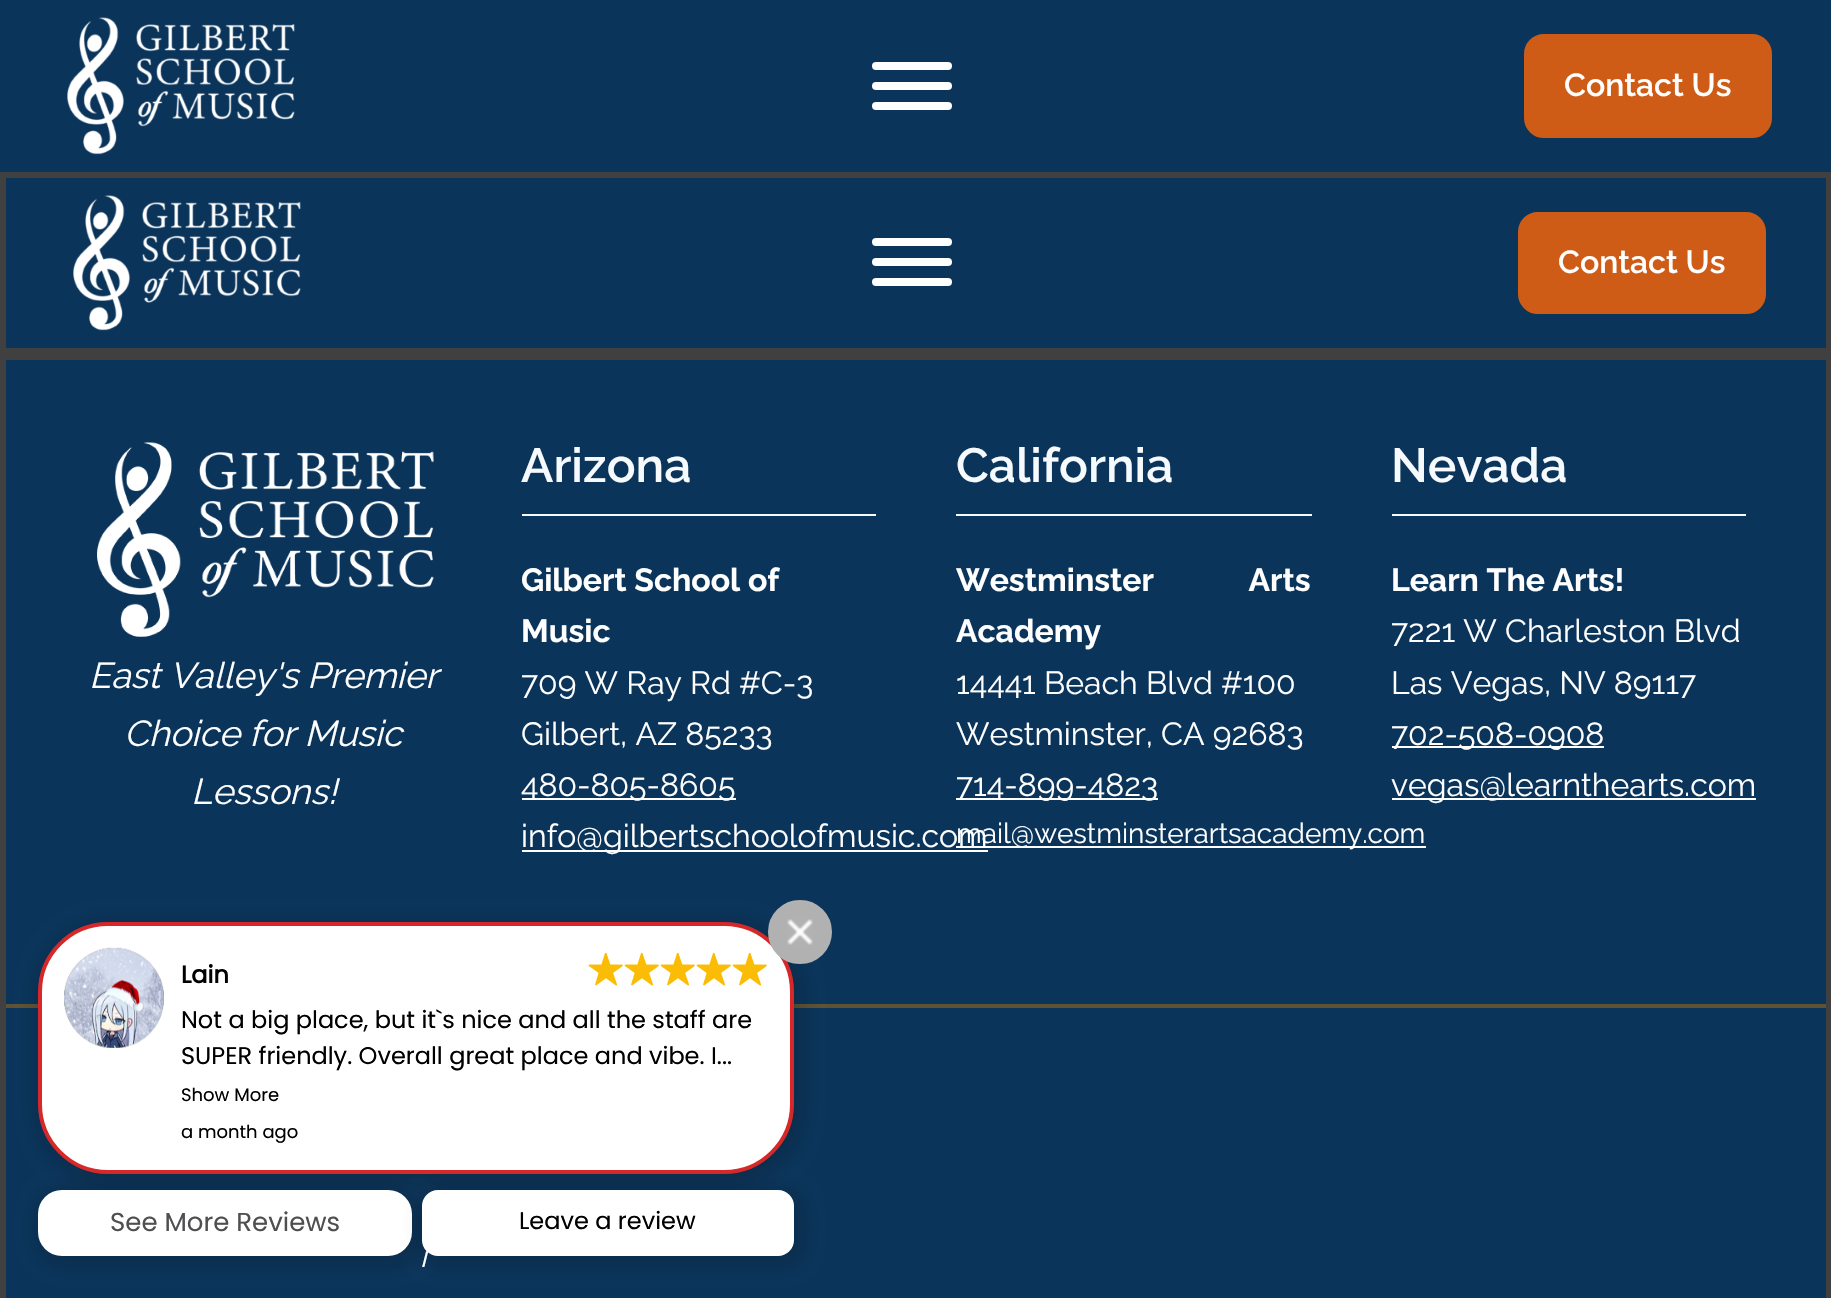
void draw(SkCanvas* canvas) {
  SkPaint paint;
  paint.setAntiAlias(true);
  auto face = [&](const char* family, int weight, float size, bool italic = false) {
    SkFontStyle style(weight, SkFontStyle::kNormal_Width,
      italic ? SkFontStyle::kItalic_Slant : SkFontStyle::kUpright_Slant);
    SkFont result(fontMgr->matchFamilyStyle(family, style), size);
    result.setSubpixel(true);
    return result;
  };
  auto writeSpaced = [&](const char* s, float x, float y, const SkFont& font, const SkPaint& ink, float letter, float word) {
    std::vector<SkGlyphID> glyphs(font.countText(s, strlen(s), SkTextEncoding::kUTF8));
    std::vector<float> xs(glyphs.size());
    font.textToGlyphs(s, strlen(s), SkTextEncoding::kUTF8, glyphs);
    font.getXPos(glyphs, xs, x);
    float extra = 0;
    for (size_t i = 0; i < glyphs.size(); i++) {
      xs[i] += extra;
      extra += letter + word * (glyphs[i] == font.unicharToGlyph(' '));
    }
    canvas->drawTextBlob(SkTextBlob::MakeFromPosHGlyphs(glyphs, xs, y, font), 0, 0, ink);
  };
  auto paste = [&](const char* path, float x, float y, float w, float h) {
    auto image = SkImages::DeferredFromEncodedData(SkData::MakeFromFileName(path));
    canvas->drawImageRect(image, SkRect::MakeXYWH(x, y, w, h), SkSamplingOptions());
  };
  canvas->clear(0xffffffff);
  paint.setColor(0xff0a345a);
  canvas->drawRect(SkRect::MakeXYWH(0, 0, 1831, 172), paint);
  paste("img/1.png", 67, 17, 228, 138);
  paint.setColor(0xffffffff);
  canvas->drawRoundRect(SkRect::MakeXYWH(872, 62, 80, 8), 4, 4, paint);
  canvas->drawRoundRect(SkRect::MakeXYWH(872, 82, 80, 8), 4, 4, paint);
  canvas->drawRoundRect(SkRect::MakeXYWH(872, 102, 80, 8), 4, 4, paint);
  paint.setColor(0xffce5c17);
  canvas->drawRoundRect(SkRect::MakeXYWH(1525, 35, 246, 102), 19, 19, paint);
  paint.setStroke(true);
  paint.setStrokeWidth(2);
  canvas->drawRoundRect(SkRect::MakeXYWH(1525, 35, 246, 102), 19, 19, paint);
  paint.setStrokeWidth(6);
  paint.setColor(0xff404040);
  canvas->drawRect(SkRect::MakeXYWH(3, 175, 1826, 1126), paint);
  paint.setStroke(false);
  paint.setColor(0xff0a345a);
  canvas->drawRect(SkRect::MakeXYWH(6, 178, 1820, 170), paint);
  paste("img/2.png", 73, 195, 228, 136);
  paint.setColor(0xffffffff);
  canvas->drawRoundRect(SkRect::MakeXYWH(872, 238, 80, 8), 4, 4, paint);
  canvas->drawRoundRect(SkRect::MakeXYWH(872, 258, 80, 8), 4, 4, paint);
  canvas->drawRoundRect(SkRect::MakeXYWH(872, 278, 80, 8), 4, 4, paint);
  paint.setColor(0xffce5c17);
  canvas->drawRoundRect(SkRect::MakeXYWH(1519, 213, 246, 100), 19, 19, paint);
  paint.setStroke(true);
  paint.setStrokeWidth(2);
  canvas->drawRoundRect(SkRect::MakeXYWH(1519, 213, 246, 100), 19, 19, paint);
  paint.setStroke(false);
  paint.setColor(0xff404040);
  canvas->drawRect(SkRect::MakeXYWH(6, 348, 1820, 12), paint);
  paint.setColor(0xff0a345a);
  canvas->drawRect(SkRect::MakeXYWH(6, 360, 1820, 644), paint);
  paste("img/3.png", 97, 442, 337, 195);
  {
    const struct { float x, y, w, h; SkColor color; } items[] = {
      {522, 514, 354, 2, 0xfff6fafd},
      {522, 798, 214, 2, 0xffffffff},
      {522, 850, 466, 2, 0xffffffff},
      {956, 514, 356, 2, 0xfff6fafd},
      {956, 798, 202, 2, 0xffffffff},
      {956, 846, 470, 2, 0xffffffff},
      {1392, 514, 354, 2, 0xfff6fafd},
      {1392, 746, 212, 2, 0xffffffff},
      {1392, 798, 364, 2, 0xffffffff},
      {6, 1008, 1820, 290, 0xff0a345a},
      {6, 1004, 1820, 4, 0xff5e5234},
    };
    for (auto [x, y, w, h, color] : items) {
      paint.setColor(color);
      canvas->drawRect(SkRect::MakeXYWH(x, y, w, h), paint);
    }
  }
  paint.setColor(0x330b0a0a);
  paint.setMaskFilter(SkMaskFilter::MakeBlur(kNormal_SkBlurStyle, 10));
  canvas->drawRoundRect(SkRect::MakeXYWH(38, 922, 764, 260), 74, 74, paint);
  paint.setMaskFilter(nullptr);
  paint.setColor(0xffffffff);
  canvas->drawRoundRect(SkRect::MakeXYWH(40, 924, 752, 248), 68, 68, paint);
  paint.setStroke(true);
  paint.setStrokeWidth(4);
  paint.setColor(0xffd62828);
  canvas->drawRoundRect(SkRect::MakeXYWH(40, 924, 752, 248), 68, 68, paint);
  paint.setStroke(false);
  paint.setColor(0xffb1b1b1);
  canvas->drawCircle(800, 932, 31, paint);
  paint.setStroke(true);
  paint.setStrokeWidth(2);
  paint.setColor(0xffb2b2b2);
  canvas->drawCircle(800, 932, 31, paint);
  paste("img/4.png", 787, 919, 26, 26);
  paste("img/5.png", 64, 947, 100, 101);
  paste("img/6.png", 588, 952, 35, 34);
  paste("img/6.png", 624, 952, 35, 34);
  paste("img/6.png", 660, 952, 35, 34);
  paste("img/6.png", 696, 952, 35, 34);
  paste("img/6.png", 732, 952, 35, 34);
  paint.setStroke(false);
  paint.setColor(0x330b0a0a);
  paint.setMaskFilter(SkMaskFilter::MakeBlur(kNormal_SkBlurStyle, 10));
  canvas->drawRoundRect(SkRect::MakeXYWH(38, 1190, 382, 74), 28, 28, paint);
  paint.setMaskFilter(nullptr);
  paint.setColor(0xffffffff);
  canvas->drawRoundRect(SkRect::MakeXYWH(38, 1190, 374, 66), 24, 24, paint);
  paint.setColor(0x330b0a0a);
  paint.setMaskFilter(SkMaskFilter::MakeBlur(kNormal_SkBlurStyle, 10));
  canvas->drawRoundRect(SkRect::MakeXYWH(422, 1190, 380, 74), 20, 20, paint);
  paint.setMaskFilter(nullptr);
  paint.setColor(0xffffffff);
  canvas->drawRoundRect(SkRect::MakeXYWH(422, 1190, 372, 66), 16, 16, paint);
  auto f0 = face("Raleway", 600, 32);
  canvas->drawString("Contact Us", 1564, 96, f0, paint);
  canvas->drawString("Contact Us", 1558, 273, f0, paint);
  auto f1 = face("Raleway", 400, 36, true);
  {
    const struct { const char* s; float x, y; } items[] = {
      {"East Valley's Premier", 89, 688},
      {"Choice for Music", 124, 746},
      {"Lessons!", 191, 804},
    };
    for (auto [s, x, y] : items) {
      canvas->drawString(s, x, y, f1, paint);
    }
  }
  auto f2 = face("Raleway", 600, 48);
  paint.setColor(0xfff6fafd);
  canvas->drawString("Arizona", 521, 482, f2, paint);
  auto f3 = face("Raleway", 700, 32);
  paint.setColor(0xffffffff);
  canvas->drawString("Gilbert School of", 521, 591, f3, paint);
  canvas->drawString("Music", 521, 642, f3, paint);
  auto f4 = face("Raleway", 400, 32);
  {
    const struct { const char* s; float x, y; } items[] = {
      {"709 W Ray Rd #C-3", 521, 694},
      {"Gilbert, AZ 85233", 521, 745},
      {"480-805-8605", 521, 796},
      {"info@gilbertschoolofmusic.com", 521, 847},
    };
    for (auto [s, x, y] : items) {
      canvas->drawString(s, x, y, f4, paint);
    }
  }
  paint.setColor(0xfff6fafd);
  canvas->drawString("California", 956, 482, f2, paint);
  paint.setColor(0xffffffff);
  writeSpaced("Westminster Arts", 956, 591, f3, paint, 0, 87);
  canvas->drawString("Academy", 956, 642, f3, paint);
  {
    const struct { const char* s; float x, y; } items[] = {
      {"14441 Beach Blvd #100", 956, 694},
      {"Westminster, CA 92683", 956, 745},
      {"714-899-4823", 956, 796},
    };
    for (auto [s, x, y] : items) {
      canvas->drawString(s, x, y, f4, paint);
    }
  }
  auto f5 = face("Raleway", 400, 28);
  canvas->drawString("mail@westminsterartsacademy.com", 956, 843, f5, paint);
  paint.setColor(0xfff6fafd);
  canvas->drawString("Nevada", 1391, 482, f2, paint);
  paint.setColor(0xffffffff);
  canvas->drawString("Learn The Arts!", 1391, 591, f3, paint);
  {
    const struct { const char* s; float x, y; } items[] = {
      {"7221 W Charleston Blvd", 1391, 642},
      {"Las Vegas, NV 89117", 1391, 694},
      {"702-508-0908", 1391, 745},
      {"vegas@learnthearts.com", 1391, 796},
    };
    for (auto [s, x, y] : items) {
      canvas->drawString(s, x, y, f4, paint);
    }
  }
  auto f6 = face("Raleway", 400, 30, true);
  canvas->drawString("i", 420, 1267, f6, paint);
  auto f7 = face("Poppins", 700, 24);
  paint.setColor(0xff000000);
  canvas->drawString("Lain", 181, 983, f7, paint);
  auto f8 = face("Poppins", 400, 24);
  canvas->drawString("Not a big place, but it`s nice and all the staff are", 181, 1028, f8, paint);
  canvas->drawString("SUPER friendly. Overall great place and vibe. I...", 181, 1064, f8, paint);
  auto f9 = face("Poppins", 400, 18);
  canvas->drawString("Show More", 181, 1101, f9, paint);
  canvas->drawString("a month ago", 181, 1138, f9, paint);
  auto f10 = face("Poppins", 400, 26);
  paint.setColor(0xff4f4f51);
  canvas->drawString("See More Reviews", 110, 1231, f10, paint);
  paint.setColor(0xff000000);
  canvas->drawString("Leave a review", 519, 1229, f8, paint);
}
